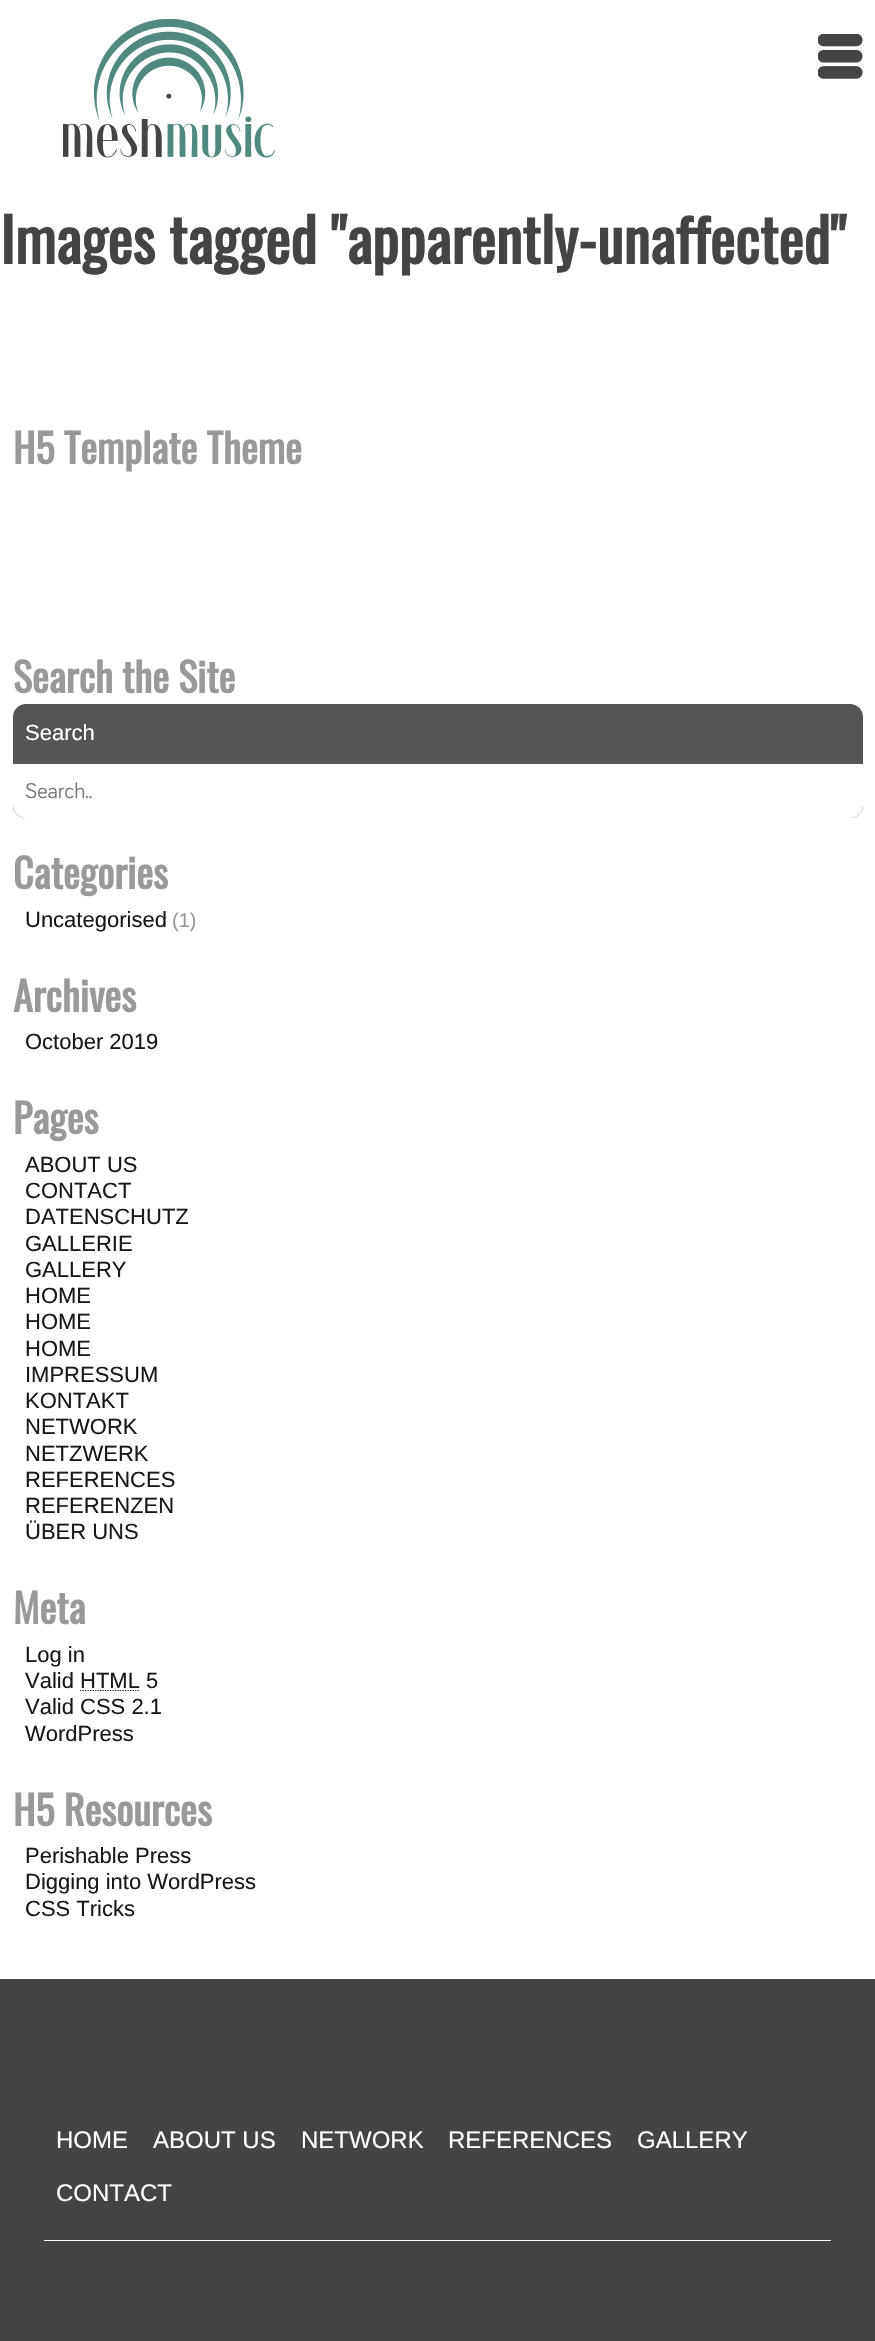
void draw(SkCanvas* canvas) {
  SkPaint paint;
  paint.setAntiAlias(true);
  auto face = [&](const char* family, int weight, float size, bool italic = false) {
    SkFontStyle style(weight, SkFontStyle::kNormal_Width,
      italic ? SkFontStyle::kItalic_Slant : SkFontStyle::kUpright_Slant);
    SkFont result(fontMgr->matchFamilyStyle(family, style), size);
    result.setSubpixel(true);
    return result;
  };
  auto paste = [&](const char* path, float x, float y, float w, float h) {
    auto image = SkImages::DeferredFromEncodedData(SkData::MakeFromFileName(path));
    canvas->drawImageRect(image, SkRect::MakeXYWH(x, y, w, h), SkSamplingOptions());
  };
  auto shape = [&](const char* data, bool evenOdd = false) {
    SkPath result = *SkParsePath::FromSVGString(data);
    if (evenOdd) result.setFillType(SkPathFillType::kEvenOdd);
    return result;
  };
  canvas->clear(0xffffffff);
  paste("img/1.png", 63, 19, 212, 139);
  paste("img/2.png", 818, 34, 45, 45);
  paint.setColor(0xff555555);
  canvas->drawRoundRect(SkRect::MakeXYWH(13, 704, 850, 114), 13, 13, paint);
  paint.setColor(0xffffffff);
  canvas->drawPath(shape("M13 764H863V805C863 812 857 818 850 818H26C19 818 13 812 13 805Z"), paint);
  paint.setStroke(true);
  paint.setStrokeWidth(1.2f);
  paint.setColor(0xff181818);
  paint.setPathEffect(SkDashPathEffect::Make({{1.25f, 1.25f}}, 0));
  canvas->drawPath(shape("M80 1690.5H140"), paint);
  paint.setPathEffect(nullptr);
  paint.setStroke(false);
  paint.setColor(0xff444444);
  canvas->drawRect(SkRect::MakeXYWH(0, 1979, 875, 362), paint);
  paint.setColor(0xffffffff);
  canvas->drawRect(SkRect::MakeXYWH(44, 2240, 787, 1), paint);
  auto f0 = face("Oswald", 700, 60);
  paint.setColor(0xff444444);
  canvas->drawString("Images tagged \"apparently-unaffected\"", 0, 264, f0, paint);
  auto f1 = face("Oswald", 700, 40);
  paint.setColor(0xff999999);
  canvas->drawString("H5 Template Theme", 13, 464, f1, paint);
  canvas->drawString("Search the Site", 13, 693, f1, paint);
  auto f2 = face("Liberation Sans", 400, 22);
  paint.setColor(0xffffffff);
  canvas->drawString("Search", 25, 740, f2, paint);
  auto f3 = face("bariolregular", 400, 22);
  paint.setColor(0xff757575);
  canvas->drawString("Search..", 25, 798, f3, paint);
  paint.setColor(0xff999999);
  canvas->drawString("Categories", 13, 889, f1, paint);
  paint.setColor(0xff181818);
  canvas->drawString("Uncategorised", 25, 927, f2, paint);
  auto f4 = face("Liberation Sans", 400, 20);
  paint.setColor(0xff999999);
  canvas->drawString("(1)", 172, 927, f4, paint);
  canvas->drawString("Archives", 13, 1012, f1, paint);
  paint.setColor(0xff181818);
  canvas->drawString("October 2019", 25, 1049, f2, paint);
  paint.setColor(0xff999999);
  canvas->drawString("Pages", 13, 1134, f1, paint);
  paint.setColor(0xff181818);
  {
    const struct { const char* s; float x, y; } items[] = {
      {"ABOUT US", 25, 1172},
      {"CONTACT", 25, 1198},
      {"DATENSCHUTZ", 25, 1224},
      {"GALLERIE", 25, 1251},
      {"GALLERY", 25, 1277},
      {"HOME", 25, 1303},
      {"HOME", 25, 1329},
      {"HOME", 25, 1356},
      {"IMPRESSUM", 25, 1382},
      {"KONTAKT", 25, 1408},
      {"NETWORK", 25, 1434},
      {"NETZWERK", 25, 1461},
      {"REFERENCES", 25, 1487},
      {"REFERENZEN", 25, 1513},
      {"ÜBER UNS", 25, 1539},
    };
    for (auto [s, x, y] : items) {
      canvas->drawString(s, x, y, f2, paint);
    }
  }
  paint.setColor(0xff999999);
  canvas->drawString("Meta", 13, 1624, f1, paint);
  paint.setColor(0xff181818);
  {
    const struct { const char* s; float x, y; } items[] = {
      {"Log in", 25, 1662},
      {"Valid HTML 5", 25, 1688},
      {"Valid CSS 2.1", 25, 1714},
      {"WordPress", 25, 1741},
    };
    for (auto [s, x, y] : items) {
      canvas->drawString(s, x, y, f2, paint);
    }
  }
  paint.setColor(0xff999999);
  canvas->drawString("H5 Resources", 13, 1826, f1, paint);
  paint.setColor(0xff181818);
  {
    const struct { const char* s; float x, y; } items[] = {
      {"Perishable Press", 25, 1863},
      {"Digging into WordPress", 25, 1889},
      {"CSS Tricks", 25, 1916},
    };
    for (auto [s, x, y] : items) {
      canvas->drawString(s, x, y, f2, paint);
    }
  }
  auto f5 = face("Liberation Sans", 400, 24);
  paint.setColor(0xffffffff);
  {
    const struct { const char* s; float x, y; } items[] = {
      {"HOME", 56, 2148},
      {"ABOUT US", 153, 2148},
      {"NETWORK", 301, 2148},
      {"REFERENCES", 448, 2148},
      {"GALLERY", 637, 2148},
      {"CONTACT", 56, 2201},
    };
    for (auto [s, x, y] : items) {
      canvas->drawString(s, x, y, f5, paint);
    }
  }
}
